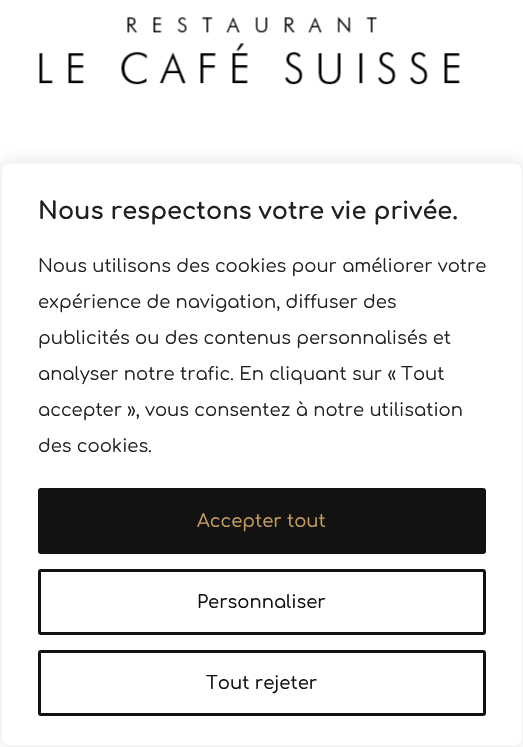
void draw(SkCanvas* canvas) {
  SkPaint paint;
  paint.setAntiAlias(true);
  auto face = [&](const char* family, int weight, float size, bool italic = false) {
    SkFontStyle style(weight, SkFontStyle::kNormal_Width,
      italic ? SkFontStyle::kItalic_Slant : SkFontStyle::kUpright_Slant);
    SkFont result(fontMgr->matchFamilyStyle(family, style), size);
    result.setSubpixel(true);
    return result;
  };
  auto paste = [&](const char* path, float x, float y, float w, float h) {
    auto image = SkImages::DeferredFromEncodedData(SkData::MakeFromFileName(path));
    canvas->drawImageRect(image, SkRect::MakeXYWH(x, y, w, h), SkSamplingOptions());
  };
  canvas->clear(0xffffffff);
  paste("img/1.png", 39, 16, 421, 69);
  paint.setColor(0x4dacabab);
  paint.setMaskFilter(SkMaskFilter::MakeBlur(kNormal_SkBlurStyle, 7.5f));
  canvas->drawRoundRect(SkRect::MakeXYWH(0, 161, 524, 585), 9, 9, paint);
  paint.setMaskFilter(nullptr);
  paint.setColor(0xffffffff);
  canvas->drawRoundRect(SkRect::MakeXYWH(1, 163, 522, 583), 8, 8, paint);
  paint.setStroke(true);
  paint.setStrokeWidth(2);
  paint.setColor(0xfff4f4f4);
  canvas->drawRoundRect(SkRect::MakeXYWH(1, 163, 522, 583), 8, 8, paint);
  paint.setStroke(false);
  paint.setColor(0xff121212);
  canvas->drawRoundRect(SkRect::MakeXYWH(39.5f, 489.5f, 445, 63), 1.5f, 1.5f, paint);
  paint.setStroke(true);
  paint.setStrokeWidth(3);
  canvas->drawRoundRect(SkRect::MakeXYWH(39.5f, 489.5f, 445, 63), 1.5f, 1.5f, paint);
  canvas->drawRoundRect(SkRect::MakeXYWH(39.5f, 570.5f, 445, 63), 1.5f, 1.5f, paint);
  canvas->drawRoundRect(SkRect::MakeXYWH(39.5f, 651.5f, 445, 63), 1.5f, 1.5f, paint);
  auto f0 = face("Comfortaa", 700, 24);
  paint.setStroke(false);
  paint.setColor(0xff212121);
  canvas->drawString("Nous respectons votre vie privée.", 38, 219, f0, paint);
  auto f1 = face("Comfortaa", 400, 18);
  {
    const struct { const char* s; float x, y; } items[] = {
      {"Nous utilisons des cookies pour améliorer votre", 38, 272},
      {"expérience de navigation, diffuser des", 38, 308},
      {"publicités ou des contenus personnalisés et", 38, 344},
      {"analyser notre trafic. En cliquant sur « Tout", 38, 380},
      {"accepter », vous consentez à notre utilisation", 38, 416},
      {"des cookies.", 38, 452},
    };
    for (auto [s, x, y] : items) {
      canvas->drawString(s, x, y, f1, paint);
    }
  }
  auto f2 = face("Comfortaa", 500, 18);
  paint.setColor(0xffc59d5f);
  canvas->drawString("Accepter tout", 197, 527, f2, paint);
  paint.setColor(0xff121212);
  canvas->drawString("Personnaliser", 197, 608, f2, paint);
  canvas->drawString("Tout rejeter", 206, 689, f2, paint);
}
